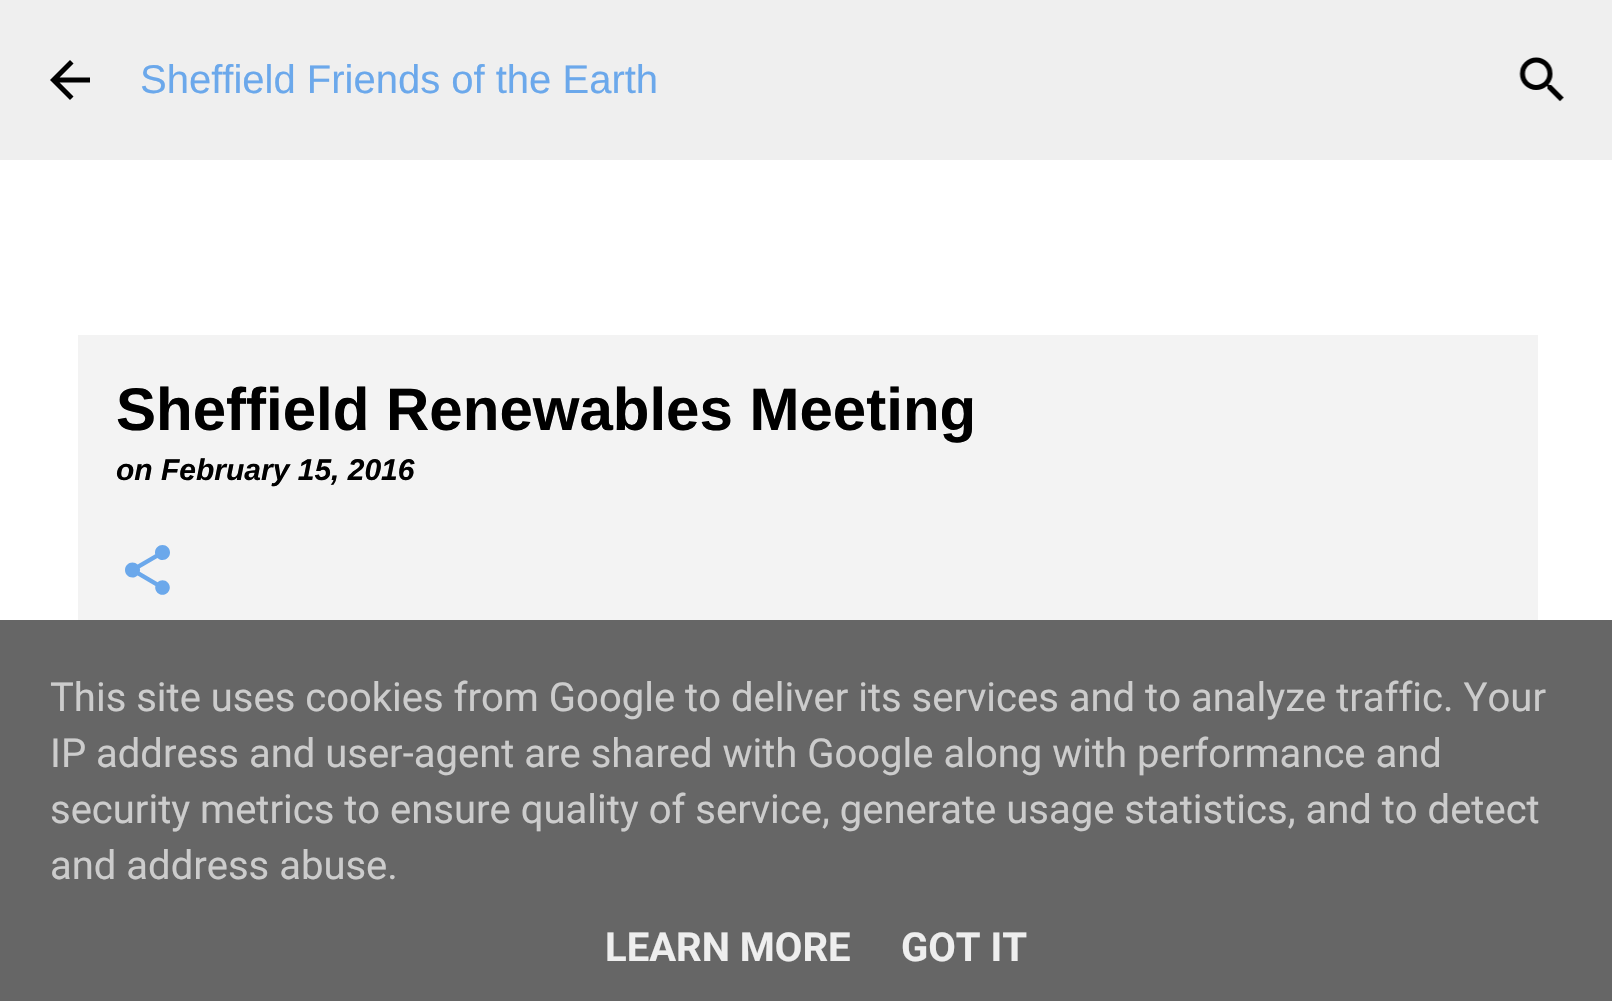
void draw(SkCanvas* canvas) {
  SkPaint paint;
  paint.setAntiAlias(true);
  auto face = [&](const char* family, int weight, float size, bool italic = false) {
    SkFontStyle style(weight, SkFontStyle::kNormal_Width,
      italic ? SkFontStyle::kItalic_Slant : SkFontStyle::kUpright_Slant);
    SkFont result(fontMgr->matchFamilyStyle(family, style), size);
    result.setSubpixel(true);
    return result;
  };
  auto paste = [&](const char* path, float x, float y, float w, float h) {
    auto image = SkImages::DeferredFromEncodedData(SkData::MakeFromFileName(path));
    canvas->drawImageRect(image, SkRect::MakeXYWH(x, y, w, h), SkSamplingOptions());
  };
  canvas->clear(0xffffffff);
  paint.setColor(0xffefefef);
  canvas->drawRect(SkRect::MakeXYWH(0, 0, 1612, 160), paint);
  paste("img/1.png", 50, 60, 40, 40);
  paste("img/2.png", 1519, 57, 45, 45);
  paint.setColor(0xfff3f3f3);
  canvas->drawRect(SkRect::MakeXYWH(78, 335, 1460, 285), paint);
  paste("img/3.png", 125, 545, 45, 50);
  paint.setColor(0xff666666);
  canvas->drawRect(SkRect::MakeXYWH(0, 620, 1612, 381), paint);
  auto f0 = face("Liberation Sans", 400, 40);
  paint.setColor(0xff6ba8eb);
  canvas->drawString("Sheffield Friends of the Earth", 140, 93, f0, paint);
  auto f1 = face("Liberation Sans", 700, 60);
  paint.setColor(0xff000000);
  canvas->drawString("Sheffield Renewables Meeting", 116, 430, f1, paint);
  auto f2 = face("Liberation Sans", 700, 30, true);
  canvas->drawString("on February 15, 2016", 116, 480, f2, paint);
  auto f3 = face("Roboto", 400, 40);
  paint.setColor(0xffcccccc);
  {
    const struct { const char* s; float x, y; } items[] = {
      {"This site uses cookies from Google to deliver its services and to analyze traffic. Your", 50, 711},
      {"IP address and user-agent are shared with Google along with performance and", 50, 767},
      {"security metrics to ensure quality of service, generate usage statistics, and to detect", 50, 823},
      {"and address abuse.", 50, 879},
    };
    for (auto [s, x, y] : items) {
      canvas->drawString(s, x, y, f3, paint);
    }
  }
  auto f4 = face("Roboto", 700, 40);
  paint.setColor(0xffeeeeee);
  canvas->drawString("LEARN MORE", 605, 961, f4, paint);
  canvas->drawString("GOT IT", 901, 961, f4, paint);
}
